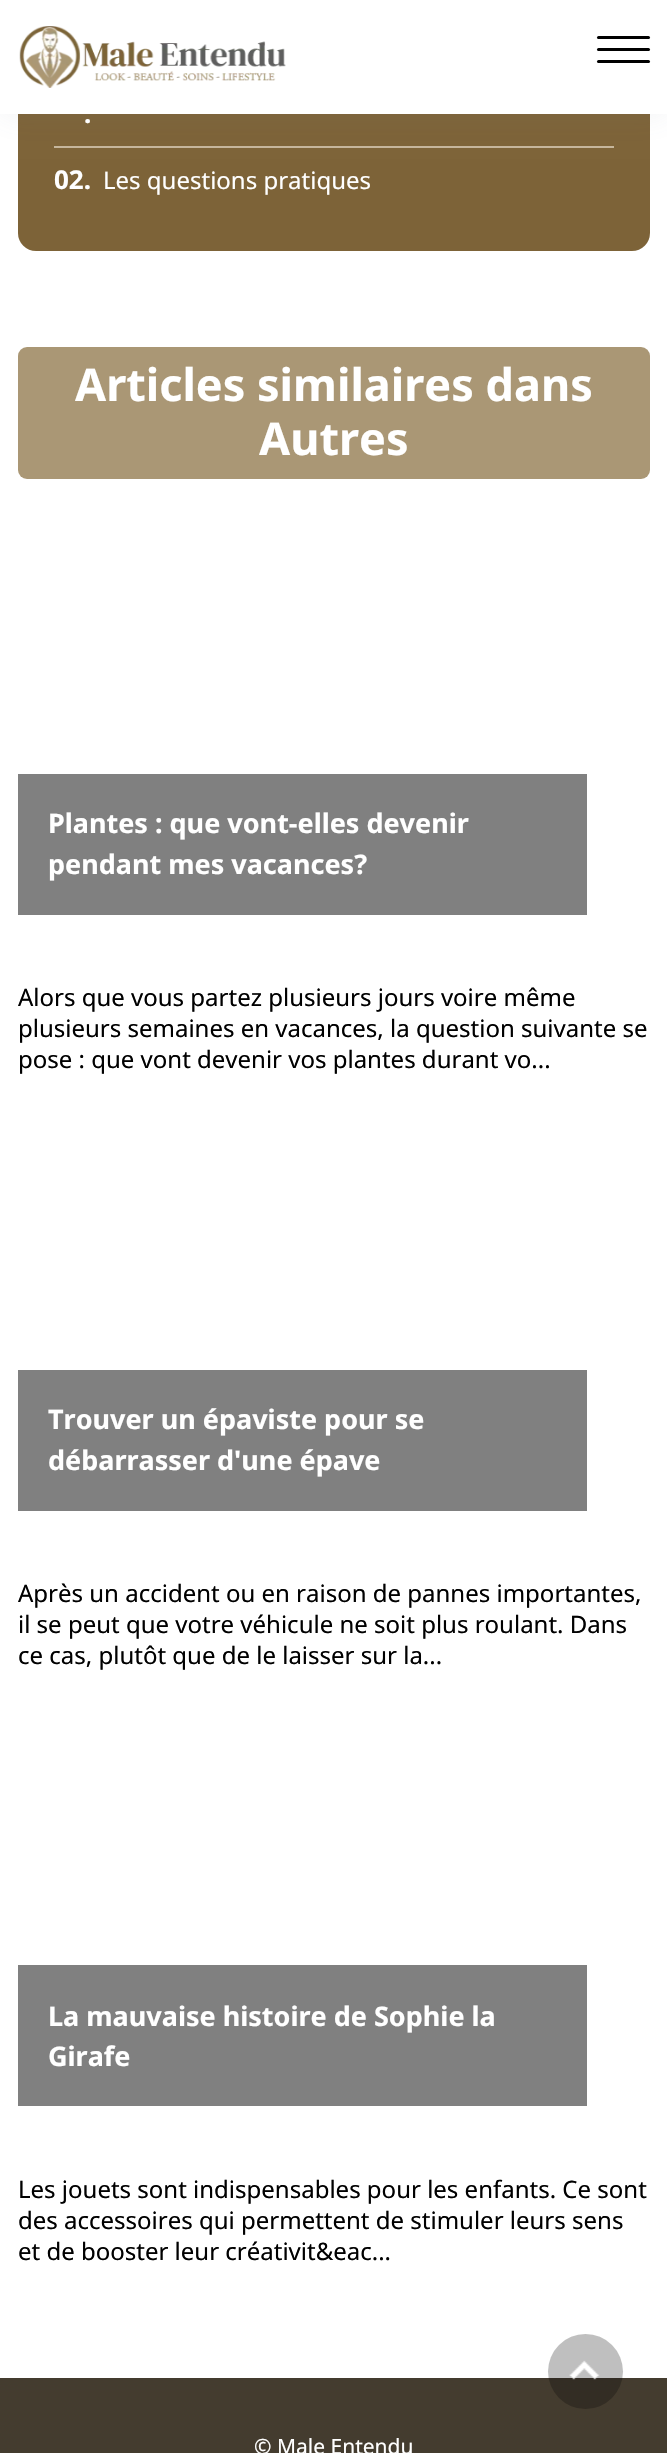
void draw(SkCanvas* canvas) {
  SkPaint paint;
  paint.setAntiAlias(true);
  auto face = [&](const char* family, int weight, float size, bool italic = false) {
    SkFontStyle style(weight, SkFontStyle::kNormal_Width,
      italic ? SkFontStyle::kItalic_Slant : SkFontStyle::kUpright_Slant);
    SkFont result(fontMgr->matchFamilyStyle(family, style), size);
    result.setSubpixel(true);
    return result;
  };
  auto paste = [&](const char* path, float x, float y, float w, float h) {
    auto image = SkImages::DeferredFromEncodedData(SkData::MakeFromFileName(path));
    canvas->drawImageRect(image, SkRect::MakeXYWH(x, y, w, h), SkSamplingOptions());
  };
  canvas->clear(0xffffffff);
  paint.setColor(0xff7d6338);
  canvas->drawRoundRect(SkRect::MakeXYWH(18, 3, 632, 248), 18, 18, paint);
  paint.setColor(0xffc6b69c);
  canvas->drawRect(SkRect::MakeXYWH(54, 146, 560, 2), paint);
  paint.setColor(0x1a6c7686);
  paint.setMaskFilter(SkMaskFilter::MakeBlur(kNormal_SkBlurStyle, 15));
  canvas->drawRect(SkRect::MakeXYWH(0, 0, 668, 114), paint);
  paint.setMaskFilter(nullptr);
  paint.setColor(0xffffffff);
  canvas->drawRect(SkRect::MakeXYWH(0, 0, 667, 114), paint);
  paste("img/1.png", 19, 26, 267, 62);
  paint.setColor(0xff000000);
  canvas->drawRoundRect(SkRect::MakeXYWH(597, 36, 53, 3), 1.5f, 1.5f, paint);
  canvas->drawRoundRect(SkRect::MakeXYWH(597, 48, 53, 3), 1.5f, 1.5f, paint);
  canvas->drawRoundRect(SkRect::MakeXYWH(597, 60, 53, 3), 1.5f, 1.5f, paint);
  paint.setColor(0xffaa9775);
  canvas->drawRoundRect(SkRect::MakeXYWH(18, 347, 632, 132), 9, 9, paint);
  {
    const struct { float x, y, w, h; SkColor color; } items[] = {
      {18, 774, 569, 141, 0xff808080},
      {18, 1370, 569, 141, 0xff808080},
      {18, 1965, 569, 141, 0xff808080},
      {0, 2378, 667, 75, 0xff443c2f},
    };
    for (auto [x, y, w, h, color] : items) {
      paint.setColor(color);
      canvas->drawRect(SkRect::MakeXYWH(x, y, w, h), paint);
    }
  }
  paint.setColor(0x40000000);
  canvas->drawCircle(585.5f, 2371.5f, 37.5f, paint);
  paste("img/2.png", 569, 2360, 31, 20);
  auto f0 = face("Noto Sans", 700, 26);
  paint.setColor(0xffffffff);
  canvas->drawString(".", 84, 123, f0, paint);
  canvas->drawString("02.", 54, 189, f0, paint);
  auto f1 = face("Noto Sans", 400, 24);
  canvas->drawString("Les questions pratiques", 103, 189, f1, paint);
  auto f2 = face("Noto Sans", 700, 45);
  canvas->drawString("Articles similaires dans", 75, 401, f2, paint);
  canvas->drawString("Autres", 259, 455, f2, paint);
  auto f3 = face("Noto Sans", 700, 27);
  canvas->drawString("Plantes : que vont-elles devenir", 48, 833, f3, paint);
  canvas->drawString("pendant mes vacances?", 48, 874, f3, paint);
  paint.setColor(0xff000000);
  {
    const struct { const char* s; float x, y; } items[] = {
      {"Alors que vous partez plusieurs jours voire même", 18, 1006},
      {"plusieurs semaines en vacances, la question suivante se", 18, 1037},
      {"pose : que vont devenir vos plantes durant vo...", 18, 1068},
    };
    for (auto [s, x, y] : items) {
      canvas->drawString(s, x, y, f1, paint);
    }
  }
  paint.setColor(0xffffffff);
  canvas->drawString("Trouver un épaviste pour se", 48, 1429, f3, paint);
  canvas->drawString("débarrasser d'une épave", 48, 1470, f3, paint);
  paint.setColor(0xff000000);
  {
    const struct { const char* s; float x, y; } items[] = {
      {"Après un accident ou en raison de pannes importantes,", 18, 1602},
      {"il se peut que votre véhicule ne soit plus roulant. Dans", 18, 1633},
      {"ce cas, plutôt que de le laisser sur la...", 18, 1664},
    };
    for (auto [s, x, y] : items) {
      canvas->drawString(s, x, y, f1, paint);
    }
  }
  paint.setColor(0xffffffff);
  canvas->drawString("La mauvaise histoire de Sophie la", 48, 2026, f3, paint);
  canvas->drawString("Girafe", 48, 2066, f3, paint);
  paint.setColor(0xff000000);
  {
    const struct { const char* s; float x, y; } items[] = {
      {"Les jouets sont indispensables pour les enfants. Ce sont", 18, 2198},
      {"des accessoires qui permettent de stimuler leurs sens", 18, 2229},
      {"et de booster leur créativit&eac...", 18, 2260},
    };
    for (auto [s, x, y] : items) {
      canvas->drawString(s, x, y, f1, paint);
    }
  }
  auto f4 = face("Noto Sans", 400, 21);
  paint.setColor(0xffffffff);
  canvas->drawString("© Male Entendu", 254, 2454, f4, paint);
}
